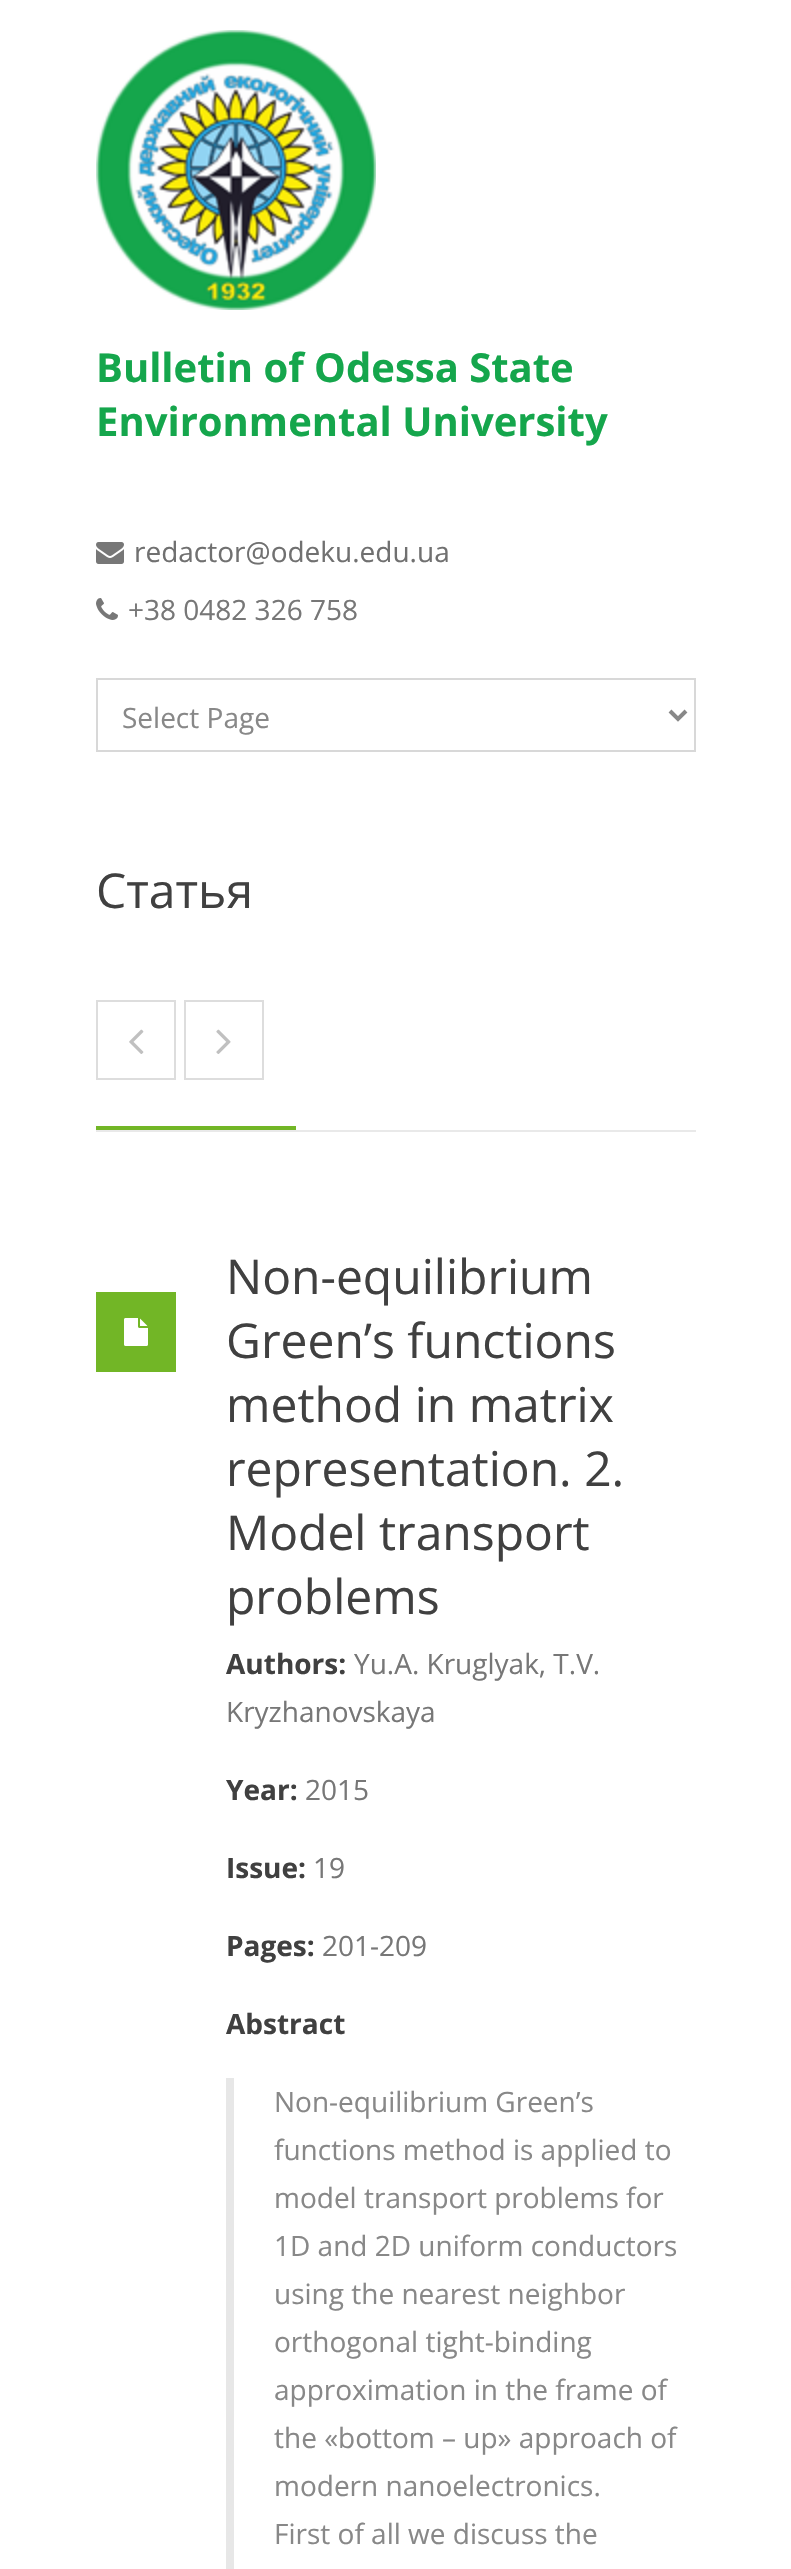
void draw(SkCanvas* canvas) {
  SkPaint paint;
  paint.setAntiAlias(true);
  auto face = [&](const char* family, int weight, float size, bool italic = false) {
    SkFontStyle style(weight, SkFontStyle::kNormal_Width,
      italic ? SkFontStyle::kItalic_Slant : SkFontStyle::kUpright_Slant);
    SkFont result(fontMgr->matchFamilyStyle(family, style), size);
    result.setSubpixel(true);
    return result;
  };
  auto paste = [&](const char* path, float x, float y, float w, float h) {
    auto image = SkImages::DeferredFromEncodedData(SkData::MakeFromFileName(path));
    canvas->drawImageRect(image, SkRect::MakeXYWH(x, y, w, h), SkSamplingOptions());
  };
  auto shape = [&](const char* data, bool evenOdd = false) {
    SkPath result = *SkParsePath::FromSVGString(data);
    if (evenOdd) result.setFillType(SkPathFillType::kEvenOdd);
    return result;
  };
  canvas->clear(0xffffffff);
  paste("img/1.png", 96, 30, 280, 280);
  paste("img/2.png", 96, 542, 28, 22);
  paste("img/3.png", 96, 598, 22, 22);
  paint.setStroke(true);
  paint.setStrokeWidth(2);
  paint.setColor(0xffd8d8d8);
  canvas->drawRect(SkRect::MakeXYWH(97, 679, 598, 72), paint);
  paint.setStrokeWidth(4);
  paint.setColor(0xff888888);
  canvas->drawPath(shape("M670 711L678 719L686 711"), paint);
  paint.setStroke(false);
  paint.setColor(0xffe9e9e9);
  canvas->drawRect(SkRect::MakeXYWH(96, 1130, 600, 2), paint);
  paint.setStroke(true);
  paint.setStrokeWidth(2);
  paint.setColor(0xffdddddd);
  canvas->drawRect(SkRect::MakeXYWH(97, 1001, 78, 78), paint);
  paste("img/4.png", 129, 1029, 15, 25);
  canvas->drawRect(SkRect::MakeXYWH(185, 1001, 78, 78), paint);
  paste("img/5.png", 216, 1029, 15, 25);
  paint.setStroke(false);
  paint.setColor(0xff72b626);
  canvas->drawRect(SkRect::MakeXYWH(96, 1126, 200, 4), paint);
  canvas->drawRect(SkRect::MakeXYWH(96, 1292, 80, 80), paint);
  paste("img/6.png", 124, 1318, 24, 28);
  paint.setColor(0xffe7e7e7);
  canvas->drawRect(SkRect::MakeXYWH(226, 2078, 8, 491), paint);
  auto f0 = face("Open Sans", 700, 40);
  paint.setColor(0xff15a64c);
  canvas->drawString("Bulletin of Odessa State", 96, 382, f0, paint);
  canvas->drawString("Environmental University", 96, 436, f0, paint);
  auto f1 = face("Open Sans", 400, 28);
  paint.setColor(0xff707070);
  canvas->drawString("redactor@odeku.edu.ua", 134, 562, f1, paint);
  paint.setColor(0xff777777);
  canvas->drawString("+38 0482 326 758", 128, 620, f1, paint);
  paint.setColor(0xff888888);
  canvas->drawString("Select Page", 122, 728, f1, paint);
  auto f2 = face("Open Sans", 400, 48);
  paint.setColor(0xff404040);
  {
    const struct { const char* s; float x, y; } items[] = {
      {"Статья", 96, 908},
      {"Non-equilibrium", 226, 1294},
      {"Green’s functions", 226, 1358},
      {"method in matrix", 226, 1422},
      {"representation. 2.", 226, 1486},
      {"Model transport", 226, 1550},
      {"problems", 226, 1614},
    };
    for (auto [s, x, y] : items) {
      canvas->drawString(s, x, y, f2, paint);
    }
  }
  auto f3 = face("Open Sans", 700, 28);
  canvas->drawString("Authors:", 226, 1674, f3, paint);
  paint.setColor(0xff777777);
  canvas->drawString("Yu.A. Kruglyak, T.V.", 354, 1674, f1, paint);
  canvas->drawString("Kryzhanovskaya", 226, 1722, f1, paint);
  paint.setColor(0xff404040);
  canvas->drawString("Year:", 226, 1800, f3, paint);
  paint.setColor(0xff777777);
  canvas->drawString("2015", 305, 1800, f1, paint);
  paint.setColor(0xff404040);
  canvas->drawString("Issue:", 226, 1878, f3, paint);
  paint.setColor(0xff777777);
  canvas->drawString("19", 313, 1878, f1, paint);
  paint.setColor(0xff404040);
  canvas->drawString("Pages:", 226, 1956, f3, paint);
  paint.setColor(0xff777777);
  canvas->drawString("201-209", 322, 1956, f1, paint);
  paint.setColor(0xff404040);
  canvas->drawString("Abstract", 226, 2034, f3, paint);
  paint.setColor(0xff888888);
  {
    const struct { const char* s; float x, y; } items[] = {
      {"Non-equilibrium Green’s", 274, 2112},
      {"functions method is applied to", 274, 2160},
      {"model transport problems for", 274, 2208},
      {"1D and 2D uniform conductors", 274, 2256},
      {"using the nearest neighbor", 274, 2304},
      {"orthogonal tight-binding", 274, 2352},
      {"approximation in the frame of", 274, 2400},
      {"the «bottom – up» approach of", 274, 2448},
      {"modern nanoelectronics.", 274, 2496},
      {"First of all we discuss the", 274, 2544},
    };
    for (auto [s, x, y] : items) {
      canvas->drawString(s, x, y, f1, paint);
    }
  }
}
